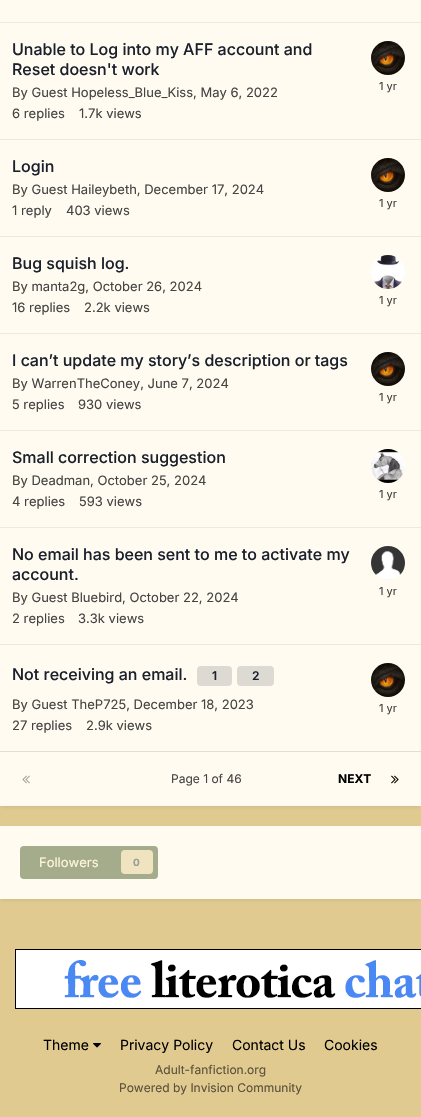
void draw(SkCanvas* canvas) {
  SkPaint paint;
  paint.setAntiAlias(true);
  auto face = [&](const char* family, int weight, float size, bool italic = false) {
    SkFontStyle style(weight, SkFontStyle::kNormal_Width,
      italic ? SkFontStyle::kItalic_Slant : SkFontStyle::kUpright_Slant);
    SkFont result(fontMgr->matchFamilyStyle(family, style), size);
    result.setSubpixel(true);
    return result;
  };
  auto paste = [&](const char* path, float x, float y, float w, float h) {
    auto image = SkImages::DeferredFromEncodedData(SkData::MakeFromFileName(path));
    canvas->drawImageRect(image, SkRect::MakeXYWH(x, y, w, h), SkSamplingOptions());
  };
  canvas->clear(0xffe0ca90);
  paint.setColor(0x1a23193f);
  paint.setMaskFilter(SkMaskFilter::MakeBlur(kNormal_SkBlurStyle, 2));
  canvas->drawRect(SkRect::MakeXYWH(1, -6, 419, 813), paint);
  paint.setMaskFilter(nullptr);
  {
    const struct { float x, y, w, h; SkColor color; } items[] = {
      {0, 0, 421, 806, 0xfffffbf0},
      {0, 22, 421, 1, 0xffece9df},
      {0, 139, 421, 1, 0xffece9df},
    };
    for (auto [x, y, w, h, color] : items) {
      paint.setColor(color);
      canvas->drawRect(SkRect::MakeXYWH(x, y, w, h), paint);
    }
  }
  paste("img/1.png", 371, 41, 34, 34);
  canvas->drawRect(SkRect::MakeXYWH(0, 236, 421, 1), paint);
  paste("img/2.png", 371, 158, 34, 34);
  canvas->drawRect(SkRect::MakeXYWH(0, 333, 421, 1), paint);
  paste("img/3.png", 371, 255, 34, 34);
  canvas->drawRect(SkRect::MakeXYWH(0, 430, 421, 1), paint);
  paste("img/2.png", 371, 352, 34, 34);
  canvas->drawRect(SkRect::MakeXYWH(0, 527, 421, 1), paint);
  paste("img/4.png", 371, 449, 34, 34);
  canvas->drawRect(SkRect::MakeXYWH(0, 644, 421, 1), paint);
  paste("img/5.png", 371, 546, 34, 34);
  paste("img/2.png", 371, 663, 34, 34);
  paint.setColor(0xffe1ded6);
  canvas->drawRect(SkRect::MakeXYWH(0, 751, 421, 1), paint);
  paste("img/6.png", 22, 775, 8, 9);
  paste("img/7.png", 391, 775, 8, 9);
  paint.setColor(0x1a23193f);
  paint.setMaskFilter(SkMaskFilter::MakeBlur(kNormal_SkBlurStyle, 2));
  canvas->drawRect(SkRect::MakeXYWH(1, 829, 419, 71), paint);
  paint.setMaskFilter(nullptr);
  paint.setColor(0xfffffbf0);
  canvas->drawRect(SkRect::MakeXYWH(0, 826, 421, 73), paint);
  paint.setColor(0xffa5ac8c);
  canvas->drawRoundRect(SkRect::MakeXYWH(20, 846, 138, 33), 4, 4, paint);
  paint.setColor(0xfff0e3c0);
  canvas->drawRoundRect(SkRect::MakeXYWH(121, 850, 32, 24), 4, 4, paint);
  paste("img/8.png", 15, 949, 406, 60);
  paste("img/9.png", 93, 1043, 8, 5);
  auto f0 = face("Inter", 500, 16);
  paint.setColor(0xff1a202c);
  canvas->drawString("Unable to Log into my AFF account and", 12, 55, f0, paint);
  canvas->drawString("Reset doesn't work", 12, 75, f0, paint);
  auto f1 = face("Inter", 400, 13);
  paint.setColor(0xff444444);
  canvas->drawString("By Guest Hopeless_Blue_Kiss, May 6, 2022", 12, 97, f1, paint);
  auto f2 = face("Inter", 400, 11);
  canvas->drawString("1 yr", 379, 90, f2, paint);
  canvas->drawString("6 replies", 12, 118, f1, paint);
  canvas->drawString("1.7k views", 79, 118, f1, paint);
  paint.setColor(0xff1a202c);
  canvas->drawString("Login", 12, 172, f0, paint);
  paint.setColor(0xff444444);
  {
    const struct { const char* s; float x, y; } items[] = {
      {"By Guest Haileybeth, December 17, 2024", 12, 194},
      {"1 reply", 12, 215},
      {"403 views", 66, 215},
    };
    for (auto [s, x, y] : items) {
      canvas->drawString(s, x, y, f1, paint);
    }
  }
  canvas->drawString("1 yr", 379, 207, f2, paint);
  paint.setColor(0xff1a202c);
  canvas->drawString("Bug squish log.", 12, 269, f0, paint);
  paint.setColor(0xff444444);
  {
    const struct { const char* s; float x, y; } items[] = {
      {"By manta2g, October 26, 2024", 12, 291},
      {"16 replies", 12, 312},
      {"2.2k views", 84, 312},
    };
    for (auto [s, x, y] : items) {
      canvas->drawString(s, x, y, f1, paint);
    }
  }
  canvas->drawString("1 yr", 379, 304, f2, paint);
  paint.setColor(0xff1a202c);
  canvas->drawString("I can’t update my story’s description or tags", 12, 366, f0, paint);
  paint.setColor(0xff444444);
  {
    const struct { const char* s; float x, y; } items[] = {
      {"By WarrenTheConey, June 7, 2024", 12, 388},
      {"5 replies", 12, 409},
      {"930 views", 78, 409},
    };
    for (auto [s, x, y] : items) {
      canvas->drawString(s, x, y, f1, paint);
    }
  }
  canvas->drawString("1 yr", 379, 401, f2, paint);
  paint.setColor(0xff1a202c);
  canvas->drawString("Small correction suggestion", 12, 463, f0, paint);
  paint.setColor(0xff444444);
  {
    const struct { const char* s; float x, y; } items[] = {
      {"By Deadman, October 25, 2024", 12, 485},
      {"4 replies", 12, 506},
      {"593 views", 79, 506},
    };
    for (auto [s, x, y] : items) {
      canvas->drawString(s, x, y, f1, paint);
    }
  }
  canvas->drawString("1 yr", 379, 498, f2, paint);
  paint.setColor(0xff1a202c);
  canvas->drawString("No email has been sent to me to activate my", 12, 560, f0, paint);
  canvas->drawString("account.", 12, 580, f0, paint);
  paint.setColor(0xff444444);
  canvas->drawString("By Guest Bluebird, October 22, 2024", 12, 602, f1, paint);
  canvas->drawString("1 yr", 379, 595, f2, paint);
  canvas->drawString("2 replies", 12, 623, f1, paint);
  canvas->drawString("3.3k views", 78, 623, f1, paint);
  paint.setColor(0xff1a202c);
  canvas->drawString("Not receiving an email.", 12, 680, f0, paint);
  auto f3 = face("Inter", 600, 12);
  canvas->drawString("1", 212, 680, f3, paint);
  paint.setColor(0x261a202c);
  canvas->drawRoundRect(SkRect::MakeXYWH(197, 666, 35, 20), 4, 4, paint);
  paint.setColor(0xff1a202c);
  canvas->drawString("2", 252, 680, f3, paint);
  paint.setColor(0x261a202c);
  canvas->drawRoundRect(SkRect::MakeXYWH(237, 666, 37, 20), 4, 4, paint);
  paint.setColor(0xff444444);
  canvas->drawString("By Guest TheP725, December 18, 2023", 12, 709, f1, paint);
  canvas->drawString("1 yr", 379, 712, f2, paint);
  canvas->drawString("27 replies", 12, 730, f1, paint);
  canvas->drawString("2.9k views", 86, 730, f1, paint);
  auto f4 = face("Inter", 400, 12);
  canvas->drawString("Page 1 of 46", 171, 783, f4, paint);
  auto f5 = face("Inter", 700, 12);
  paint.setColor(0xff000000);
  canvas->drawString("NEXT", 338, 783, f5, paint);
  paint.setColor(0xfffff7de);
  canvas->drawString("Followers", 39, 867, f1, paint);
  auto f6 = face("Inter", 700, 10);
  paint.setColor(0xff9a9c99);
  canvas->drawString("0", 133, 866, f6, paint);
  auto f7 = face("Inter", 400, 14);
  paint.setColor(0xff000000);
  {
    const struct { const char* s; float x, y; } items[] = {
      {"Theme", 43, 1050},
      {"Privacy Policy", 120, 1050},
      {"Contact Us", 232, 1050},
      {"Cookies", 324, 1050},
    };
    for (auto [s, x, y] : items) {
      canvas->drawString(s, x, y, f7, paint);
    }
  }
  paint.setColor(0xff5a513a);
  canvas->drawString("Adult-fanfiction.org", 155, 1074, f4, paint);
  canvas->drawString("Powered by Invision Community", 119, 1092, f4, paint);
}
